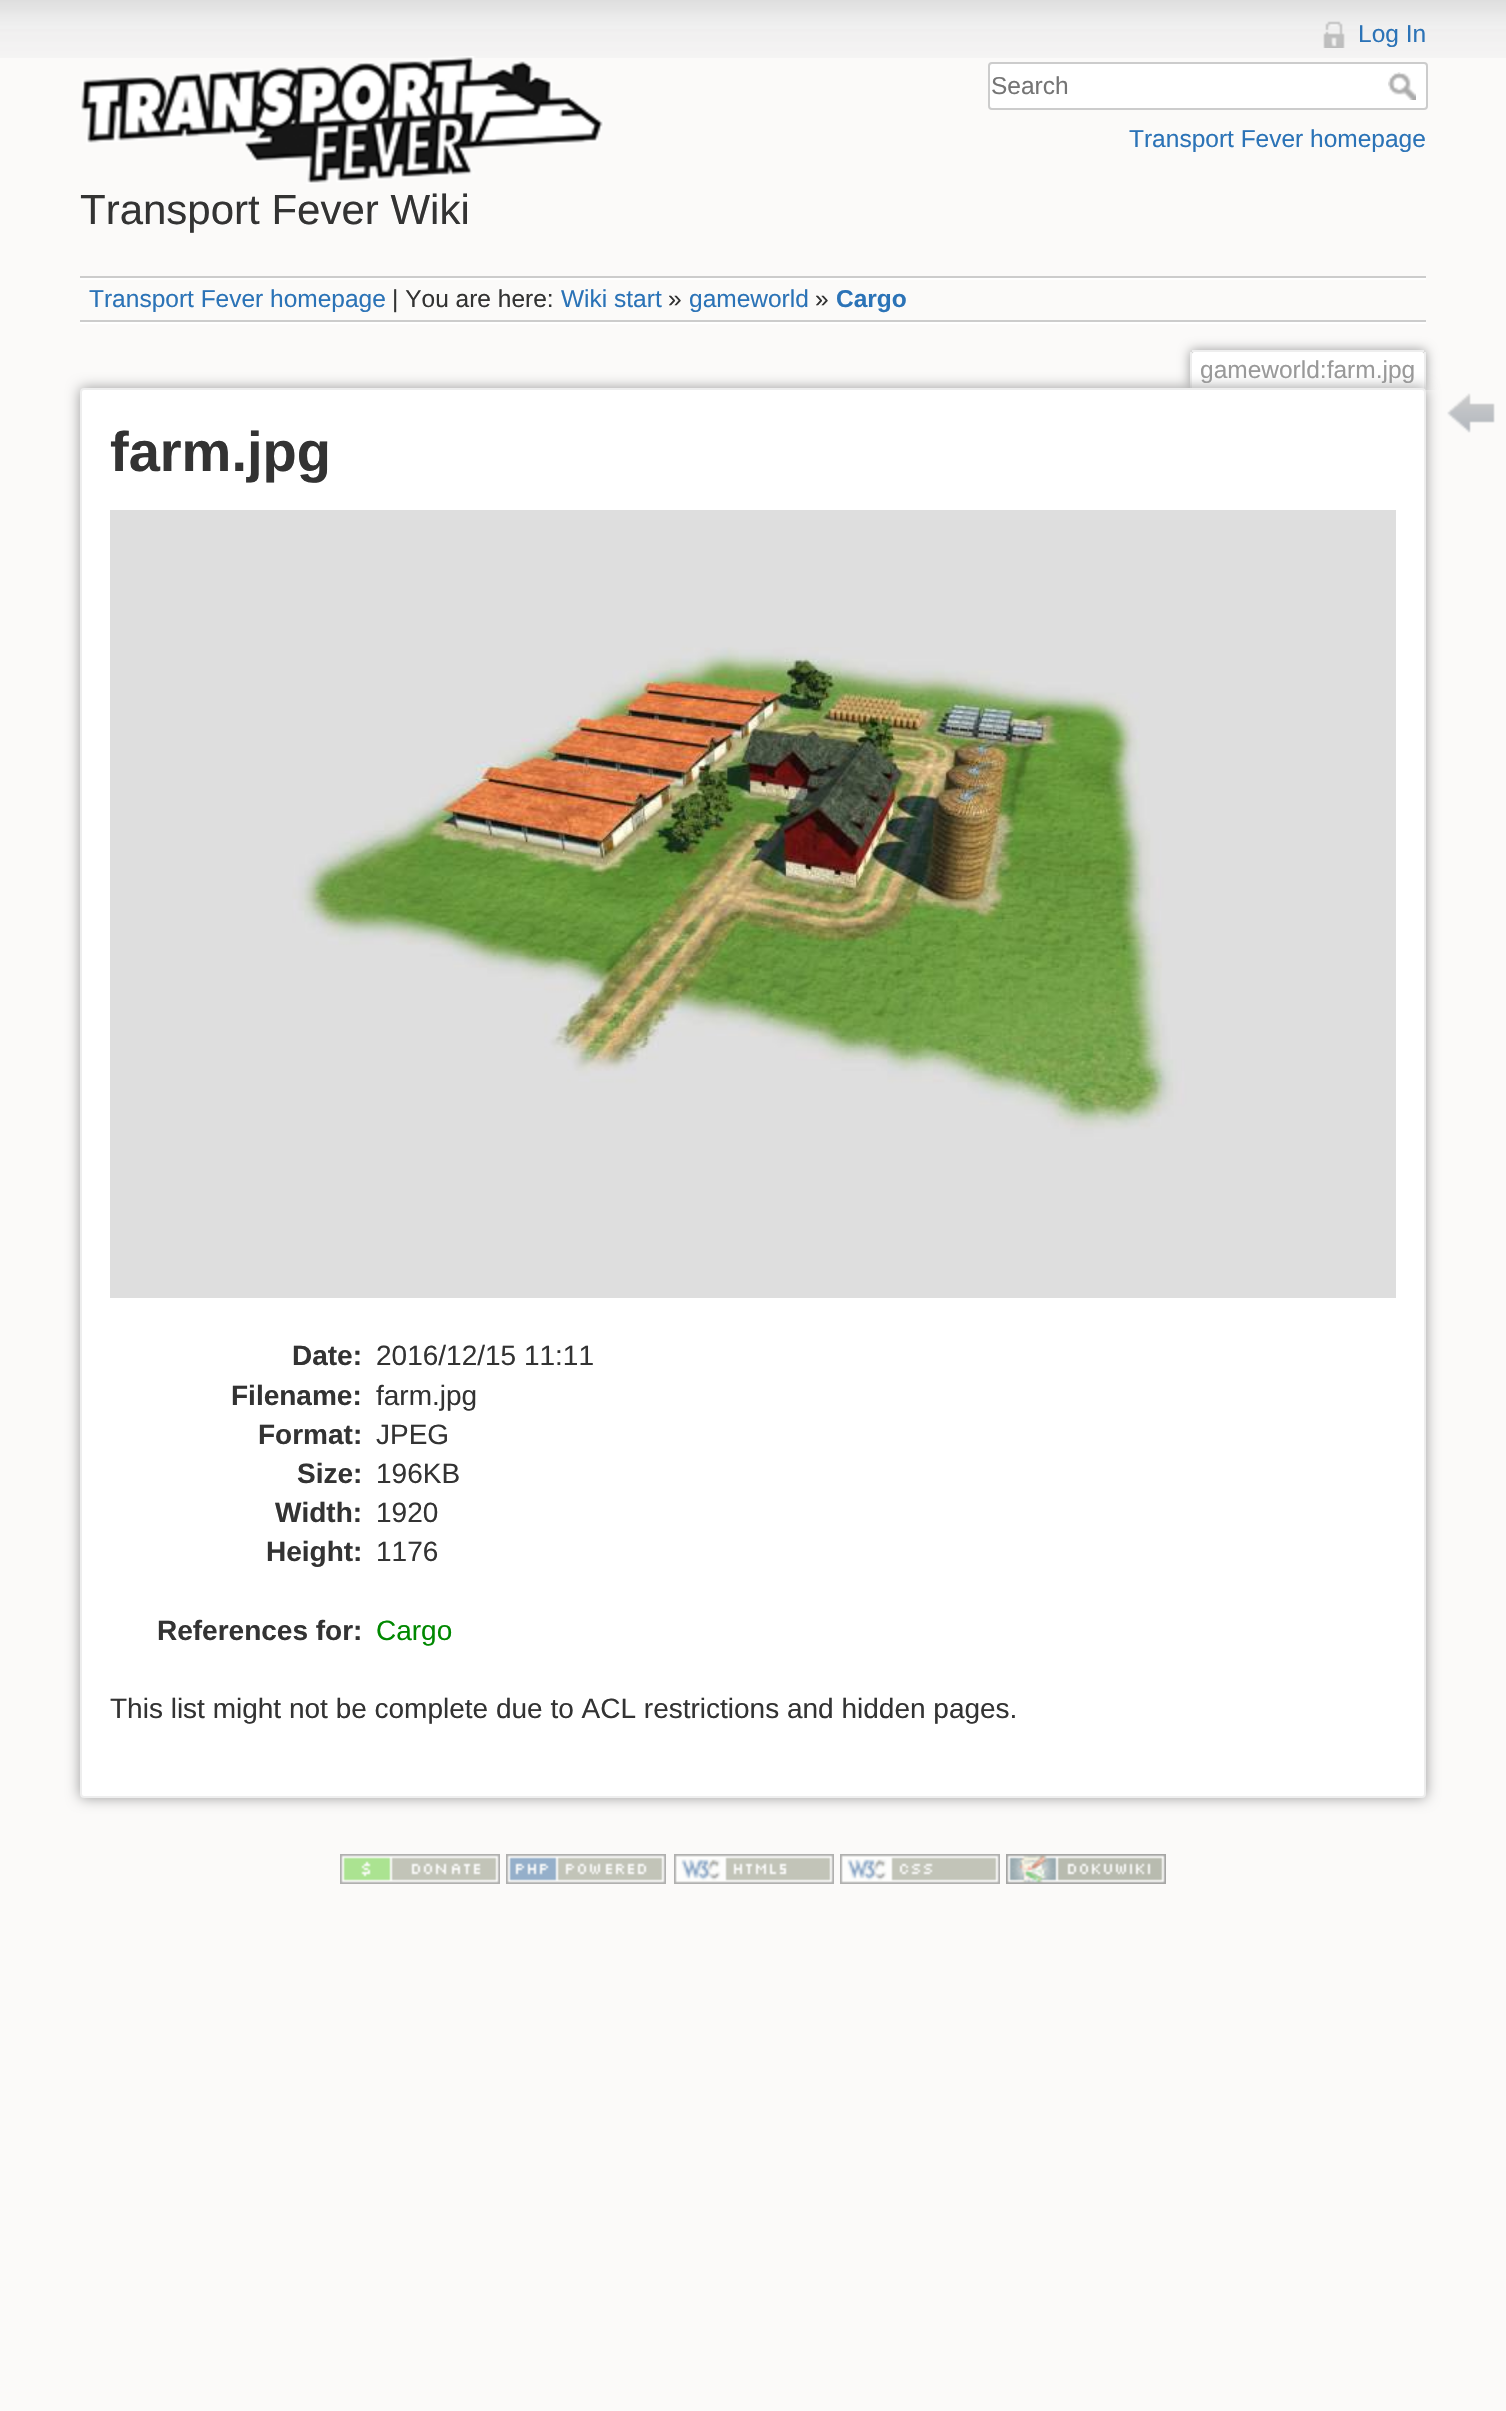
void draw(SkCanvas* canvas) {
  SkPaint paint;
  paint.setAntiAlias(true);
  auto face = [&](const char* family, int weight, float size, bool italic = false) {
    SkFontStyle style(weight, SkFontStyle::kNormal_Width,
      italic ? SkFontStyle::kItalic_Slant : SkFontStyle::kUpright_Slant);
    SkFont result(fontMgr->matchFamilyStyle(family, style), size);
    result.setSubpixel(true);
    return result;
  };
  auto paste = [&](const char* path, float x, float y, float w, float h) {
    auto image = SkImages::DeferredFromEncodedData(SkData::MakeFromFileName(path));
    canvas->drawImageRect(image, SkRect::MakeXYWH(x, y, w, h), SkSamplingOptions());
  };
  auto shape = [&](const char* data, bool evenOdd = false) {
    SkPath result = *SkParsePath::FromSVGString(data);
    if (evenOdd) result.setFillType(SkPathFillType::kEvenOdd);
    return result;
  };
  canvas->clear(0xfffbfaf9);
  paste("img/1.png", 0, 0, 1506, 58);
  paste("img/2.png", 1323, 21, 22, 27);
  paint.setColor(0xffffffff);
  canvas->drawRoundRect(SkRect::MakeXYWH(989, 63, 438, 46), 3, 3, paint);
  paint.setStroke(true);
  paint.setStrokeWidth(2);
  paint.setColor(0xffcccccc);
  canvas->drawRoundRect(SkRect::MakeXYWH(989, 63, 438, 46), 3, 3, paint);
  paste("img/3.png", 1388, 72, 28, 28);
  paste("img/4.png", 80, 56, 524, 128);
  paint.setStroke(false);
  {
    const struct { float x, y, w, h; SkColor color; } items[] = {
      {80, 276, 1346, 2, 0xffcccccc},
      {80, 322, 1346, 2, 0xffffffff},
      {80, 278, 1346, 2, 0xffffffff},
      {80, 320, 1346, 2, 0xffcccccc},
    };
    for (auto [x, y, w, h, color] : items) {
      paint.setColor(color);
      canvas->drawRect(SkRect::MakeXYWH(x, y, w, h), paint);
    }
  }
  canvas->save();
  canvas->clipRect(SkRect::MakeXYWH(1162, 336, 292, 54));
  paint.setColor(0xff999999);
  paint.setMaskFilter(SkMaskFilter::MakeBlur(kNormal_SkBlurStyle, 6));
  canvas->drawRoundRect(SkRect::MakeXYWH(1190, 350, 236, 40), 4, 4, paint);
  paint.setMaskFilter(nullptr);
  canvas->restore();
  paint.setColor(0xffffffff);
  canvas->drawPath(shape("M1194 352H1422C1423 352 1424 353 1424 354V390H1192V354C1192 353 1193 352 1194 352Z"), paint);
  {
    const struct { float x, y, w, h; SkColor color; } items[] = {
      {1192, 350, 232, 2, 0xffeeeeee},
      {1424, 352, 2, 38, 0xffeeeeee},
      {1190, 352, 2, 38, 0xffeeeeee},
    };
    for (auto [x, y, w, h, color] : items) {
      paint.setColor(color);
      canvas->drawRect(SkRect::MakeXYWH(x, y, w, h), paint);
    }
  }
  paint.setColor(0xff999999);
  paint.setMaskFilter(SkMaskFilter::MakeBlur(kNormal_SkBlurStyle, 7));
  canvas->drawRoundRect(SkRect::MakeXYWH(80, 388, 1346, 1410), 4, 4, paint);
  paint.setMaskFilter(nullptr);
  paint.setColor(0xffffffff);
  canvas->drawRoundRect(SkRect::MakeXYWH(81, 389, 1344, 1408), 3, 3, paint);
  paint.setStroke(true);
  paint.setColor(0xffeeeeee);
  canvas->drawRoundRect(SkRect::MakeXYWH(81, 389, 1344, 1408), 3, 3, paint);
  paste("img/5.png", 110, 510, 1286, 788);
  paste("img/6.png", 1447, 393, 48, 40);
  paste("img/7.png", 340, 1854, 160, 30);
  paste("img/8.png", 506, 1854, 160, 30);
  paste("img/9.png", 674, 1854, 160, 30);
  paste("img/10.png", 840, 1854, 160, 30);
  paste("img/11.png", 1006, 1854, 160, 30);
  auto f0 = face("Liberation Sans", 400, 24.5f);
  paint.setStroke(false);
  paint.setColor(0xff2b73b7);
  canvas->drawString("Log In", 1358, 42, f0, paint);
  paint.setColor(0xff757575);
  canvas->drawString("Search", 991, 94, f0, paint);
  paint.setColor(0xff2b73b7);
  canvas->drawString("Transport Fever homepage", 1129, 147, f0, paint);
  auto f1 = face("Liberation Sans", 400, 42);
  paint.setColor(0xff333333);
  canvas->drawString("Transport Fever Wiki", 80, 224, f1, paint);
  paint.setColor(0xff2b73b7);
  canvas->drawString("Transport Fever homepage", 89, 307, f0, paint);
  paint.setColor(0xff333333);
  canvas->drawString("| You are here:", 392, 307, f0, paint);
  paint.setColor(0xff2b73b7);
  canvas->drawString("Wiki start", 561, 307, f0, paint);
  paint.setColor(0xff333333);
  canvas->drawString("»", 668, 307, f0, paint);
  paint.setColor(0xff2b73b7);
  canvas->drawString("gameworld", 689, 307, f0, paint);
  paint.setColor(0xff333333);
  canvas->drawString("»", 815, 307, f0, paint);
  auto f2 = face("Liberation Sans", 700, 24.5f);
  paint.setColor(0xff2b73b7);
  canvas->drawString("Cargo", 836, 307, f2, paint);
  paint.setColor(0xff999999);
  canvas->drawString("gameworld:farm.jpg", 1200, 378, f0, paint);
  auto f3 = face("Liberation Sans", 700, 56);
  paint.setColor(0xff333333);
  canvas->drawString("farm.jpg", 110, 471, f3, paint);
  auto f4 = face("Liberation Sans", 700, 28);
  canvas->drawString("Date:", 292, 1365, f4, paint);
  auto f5 = face("Liberation Sans", 400, 28);
  canvas->drawString("2016/12/15 11:11", 376, 1365, f5, paint);
  canvas->drawString("Filename:", 231, 1405, f4, paint);
  canvas->drawString("farm.jpg", 376, 1405, f5, paint);
  canvas->drawString("Format:", 258, 1444, f4, paint);
  canvas->drawString("JPEG", 376, 1444, f5, paint);
  canvas->drawString("Size:", 297, 1483, f4, paint);
  canvas->drawString("196KB", 376, 1483, f5, paint);
  canvas->drawString("Width:", 275, 1522, f4, paint);
  canvas->drawString("1920", 376, 1522, f5, paint);
  canvas->drawString("Height:", 266, 1561, f4, paint);
  canvas->drawString("1176", 376, 1561, f5, paint);
  canvas->drawString("References for:", 157, 1640, f4, paint);
  paint.setColor(0xff008800);
  canvas->drawString("Cargo", 376, 1640, f5, paint);
  paint.setColor(0xff333333);
  canvas->drawString("This list might not be complete due to ACL restrictions and hidden pages.", 110, 1718, f5, paint);
}
